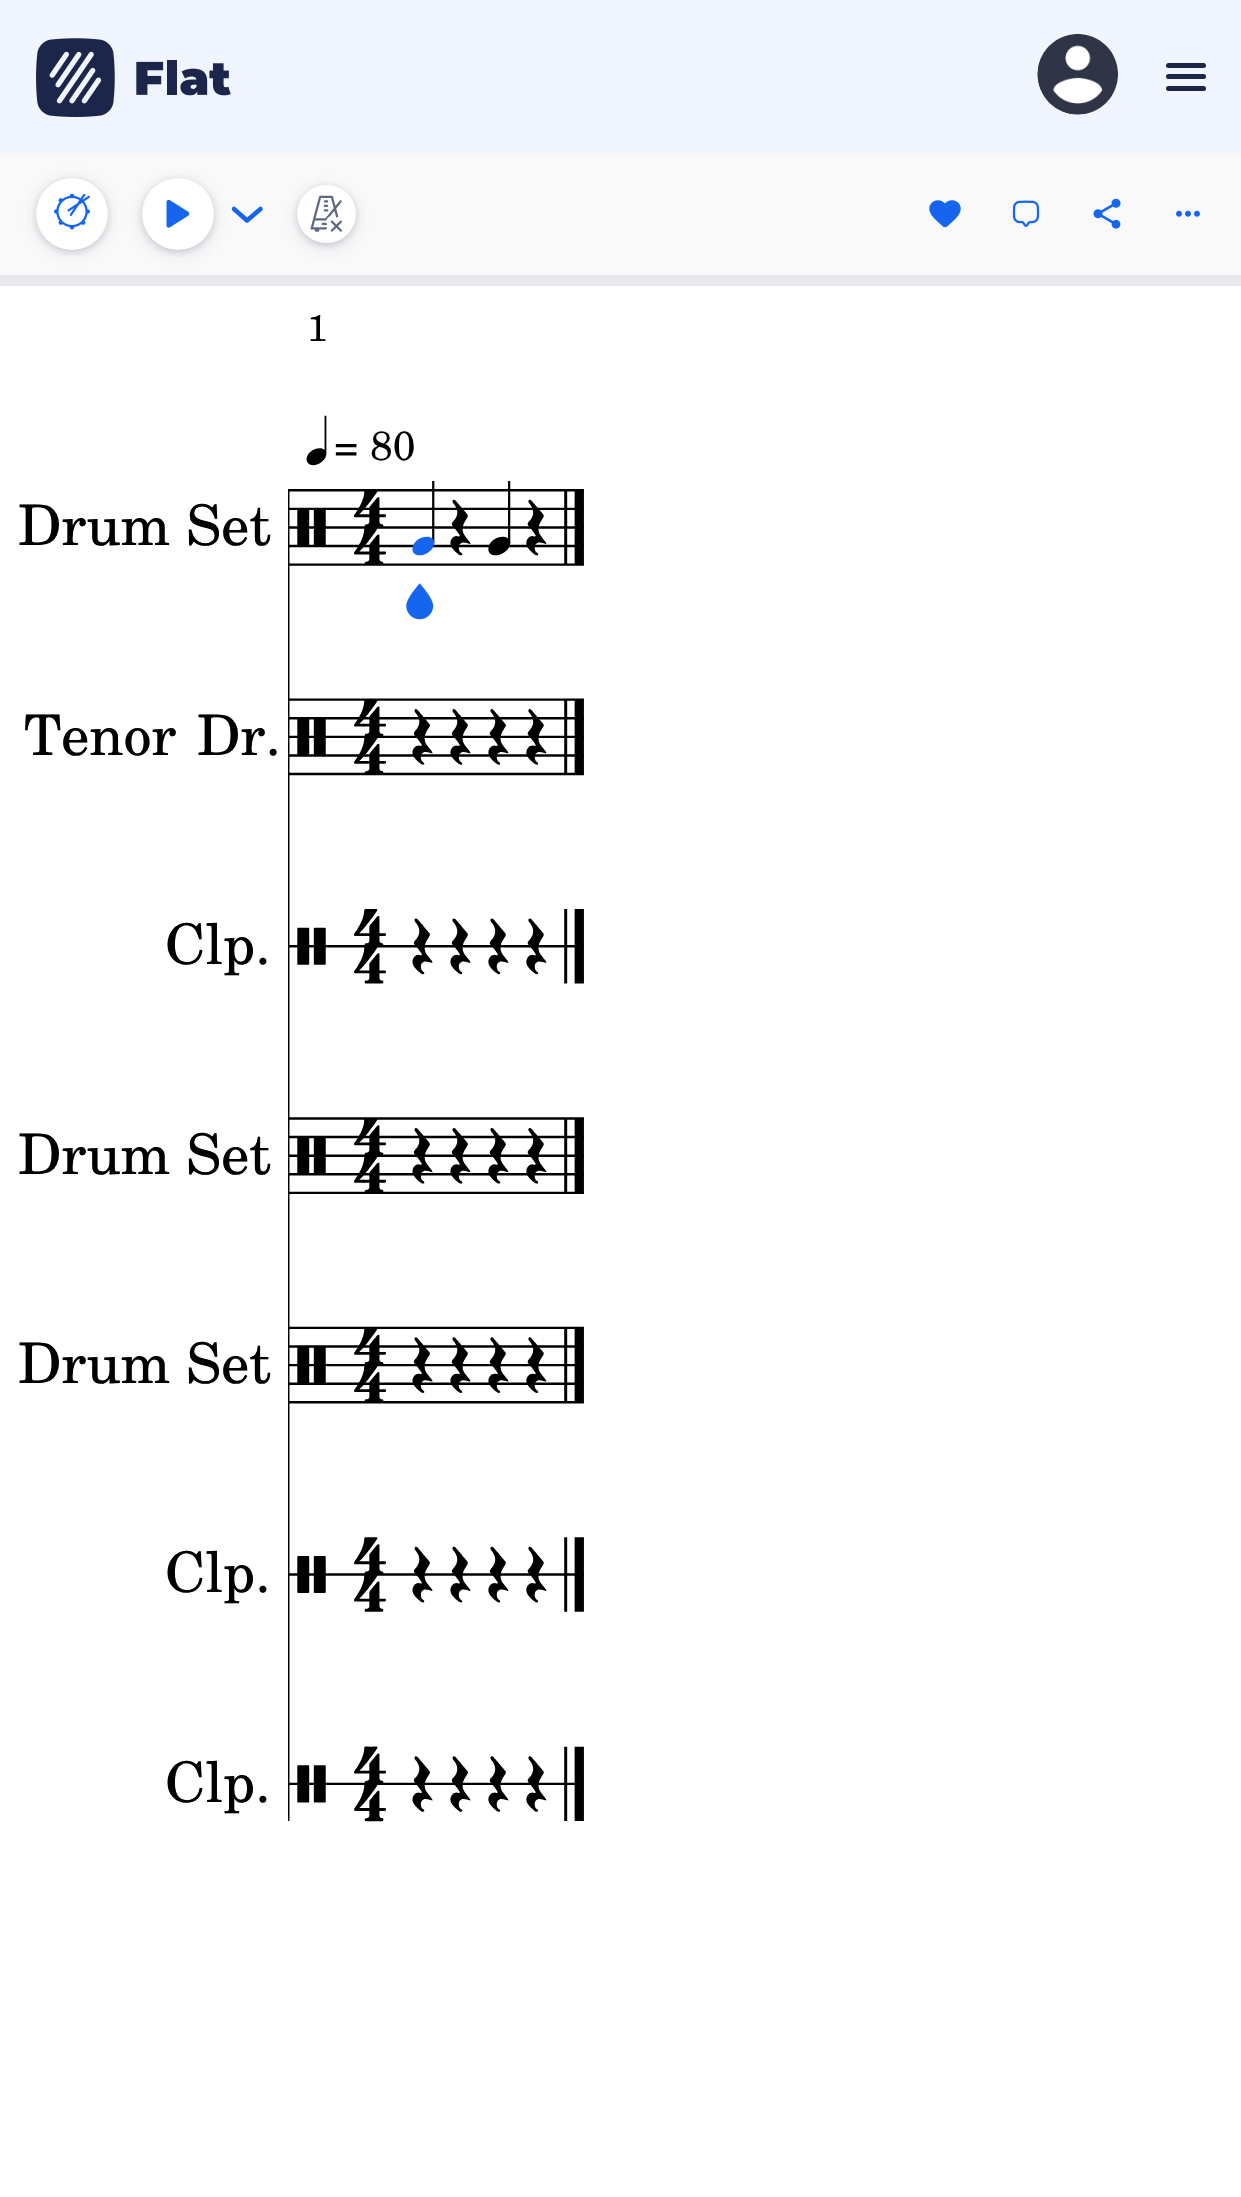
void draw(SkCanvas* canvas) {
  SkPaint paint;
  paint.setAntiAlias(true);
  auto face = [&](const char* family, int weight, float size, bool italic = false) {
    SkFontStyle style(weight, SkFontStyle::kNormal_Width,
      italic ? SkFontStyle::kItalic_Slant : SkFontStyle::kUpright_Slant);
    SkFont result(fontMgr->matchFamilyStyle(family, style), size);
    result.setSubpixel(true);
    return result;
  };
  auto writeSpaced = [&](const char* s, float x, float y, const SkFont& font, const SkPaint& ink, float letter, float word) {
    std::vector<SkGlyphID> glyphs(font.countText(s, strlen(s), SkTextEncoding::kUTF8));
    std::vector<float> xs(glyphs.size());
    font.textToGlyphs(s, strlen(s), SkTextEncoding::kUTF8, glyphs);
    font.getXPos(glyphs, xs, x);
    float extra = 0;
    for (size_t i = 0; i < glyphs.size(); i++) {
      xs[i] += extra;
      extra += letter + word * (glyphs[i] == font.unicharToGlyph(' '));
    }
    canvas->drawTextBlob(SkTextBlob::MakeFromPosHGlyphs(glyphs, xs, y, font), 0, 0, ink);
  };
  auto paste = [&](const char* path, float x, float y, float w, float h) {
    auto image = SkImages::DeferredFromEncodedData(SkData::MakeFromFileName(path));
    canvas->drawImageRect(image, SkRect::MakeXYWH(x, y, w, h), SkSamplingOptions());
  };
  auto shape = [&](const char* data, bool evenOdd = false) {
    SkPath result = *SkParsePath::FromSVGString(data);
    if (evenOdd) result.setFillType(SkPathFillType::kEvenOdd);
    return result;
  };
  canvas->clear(0xffffffff);
  paint.setColor(0xfff1f6fe);
  canvas->drawRect(SkRect::MakeXYWH(0, 0, 1241, 153), paint);
  paste("img/1.png", 36, 38, 195, 79);
  paint.setColor(0xffffffff);
  canvas->drawCircle(1077.5f, 74.5f, 40.5f, paint);
  paste("img/2.png", 1037, 33, 82, 82);
  paint.setColor(0xff1c264a);
  canvas->drawRoundRect(SkRect::MakeXYWH(1166, 63, 40, 5), 2.5f, 2.5f, paint);
  canvas->drawRoundRect(SkRect::MakeXYWH(1166, 74, 40, 5), 2.5f, 2.5f, paint);
  canvas->drawRoundRect(SkRect::MakeXYWH(1166, 86, 40, 5), 2.5f, 2.5f, paint);
  paint.setColor(0xfff9f9fa);
  canvas->drawRect(SkRect::MakeXYWH(0, 153, 1241, 122), paint);
  paint.setColor(0x1a28304f);
  paint.setMaskFilter(SkMaskFilter::MakeBlur(kNormal_SkBlurStyle, 9));
  canvas->drawRoundRect(SkRect::MakeXYWH(142, 182, 72, 72), 36, 36, paint);
  paint.setMaskFilter(nullptr);
  paint.setMaskFilter(SkMaskFilter::MakeBlur(kNormal_SkBlurStyle, 9));
  canvas->drawRoundRect(SkRect::MakeXYWH(297, 189, 59, 59), 29.5f, 29.5f, paint);
  paint.setMaskFilter(nullptr);
  paint.setColor(0xffe7e8ec);
  canvas->drawRect(SkRect::MakeXYWH(0, 275, 1241, 11), paint);
  paint.setColor(0x1a28304f);
  paint.setMaskFilter(SkMaskFilter::MakeBlur(kNormal_SkBlurStyle, 9));
  canvas->drawRoundRect(SkRect::MakeXYWH(36, 180, 72, 72), 36, 36, paint);
  paint.setMaskFilter(nullptr);
  paint.setColor(0x3328304f);
  paint.setMaskFilter(SkMaskFilter::MakeBlur(kNormal_SkBlurStyle, 3.5f));
  canvas->drawRoundRect(SkRect::MakeXYWH(36, 180, 72, 72), 36, 36, paint);
  paint.setMaskFilter(nullptr);
  paint.setColor(0xffffffff);
  canvas->drawCircle(72, 214, 36, paint);
  paste("img/3.png", 54, 194, 36, 36);
  paint.setColor(0x3328304f);
  paint.setMaskFilter(SkMaskFilter::MakeBlur(kNormal_SkBlurStyle, 3.5f));
  canvas->drawRoundRect(SkRect::MakeXYWH(142, 180, 72, 72), 36, 36, paint);
  paint.setMaskFilter(nullptr);
  paint.setColor(0xffffffff);
  canvas->drawCircle(178, 214, 36, paint);
  paste("img/4.png", 166, 199, 24, 29);
  paint.setStroke(true);
  paint.setStrokeWidth(4.5f);
  paint.setStrokeCap(SkPaint::kRound_Cap);
  paint.setStrokeJoin(SkPaint::kRound_Join);
  paint.setColor(0xff1565ef);
  canvas->drawPath(shape("M234 209L247 220.5L260.5 209"), paint);
  paint.setStroke(false);
  paint.setColor(0x3328304f);
  paint.setMaskFilter(SkMaskFilter::MakeBlur(kNormal_SkBlurStyle, 3.5f));
  canvas->drawRoundRect(SkRect::MakeXYWH(297, 187, 59, 58), 29, 29, paint);
  paint.setMaskFilter(nullptr);
  paint.setColor(0xffffffff);
  canvas->drawRoundRect(SkRect::MakeXYWH(297, 185, 59, 58), 29, 29, paint);
  paste("img/5.png", 310, 195, 32, 37);
  paste("img/6.png", 929, 200, 32, 28);
  paste("img/7.png", 1012, 200, 28, 27);
  paste("img/8.png", 1093, 198, 28, 31);
  paste("img/9.png", 1176, 210, 24, 7);
  {
    const SkColor colors[] = {0xff919191, 0xffffffff};
    const float stops[] = {0, 1};
    SkMatrix m = SkMatrix::Translate(288, 1285).preScale(24, 925);
    paint.setShader(SkGradientShader::MakeRadial({0, 0}, 1, colors, stops, 2, SkTileMode::kClamp, 0, &m));
    paint.setAlpha(255);
  }
  canvas->drawRect(SkRect::MakeXYWH(307, 784, 4, 1002), paint);
  {
    const SkColor colors[] = {0xffffffff, 0xffffffff, 0x80ffffff};
    const float stops[] = {0, 0.02f, 0.05f};
    const SkPoint ends[] = {{288, 1285}, {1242, 1285}};
    paint.setShader(SkGradientShader::MakeLinear(ends, colors, stops, 3, SkTileMode::kClamp));
    paint.setAlpha(255);
  }
  canvas->drawRect(SkRect::MakeXYWH(307, 784, 4, 1002), paint);
  paste("img/10.png", 288, 415, 296, 1407);
  auto f0 = face("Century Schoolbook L", 400, 37);
  paint.setShader(nullptr);
  paint.setColor(0xff000000);
  canvas->drawString("1", 307, 341, f0, paint);
  auto f1 = face("Century Schoolbook L", 400, 56);
  canvas->drawString("Drum Set", 18, 545, f1, paint);
  writeSpaced("Tenor Dr.", 24, 755, f1, paint, 0, 5);
  {
    const struct { const char* s; float x, y; } items[] = {
      {"Clp.", 165, 964},
      {"Drum Set", 18, 1174},
      {"Drum Set", 18, 1383},
      {"Clp.", 165, 1592},
      {"Clp.", 165, 1802},
    };
    for (auto [s, x, y] : items) {
      canvas->drawString(s, x, y, f1, paint);
    }
  }
}
